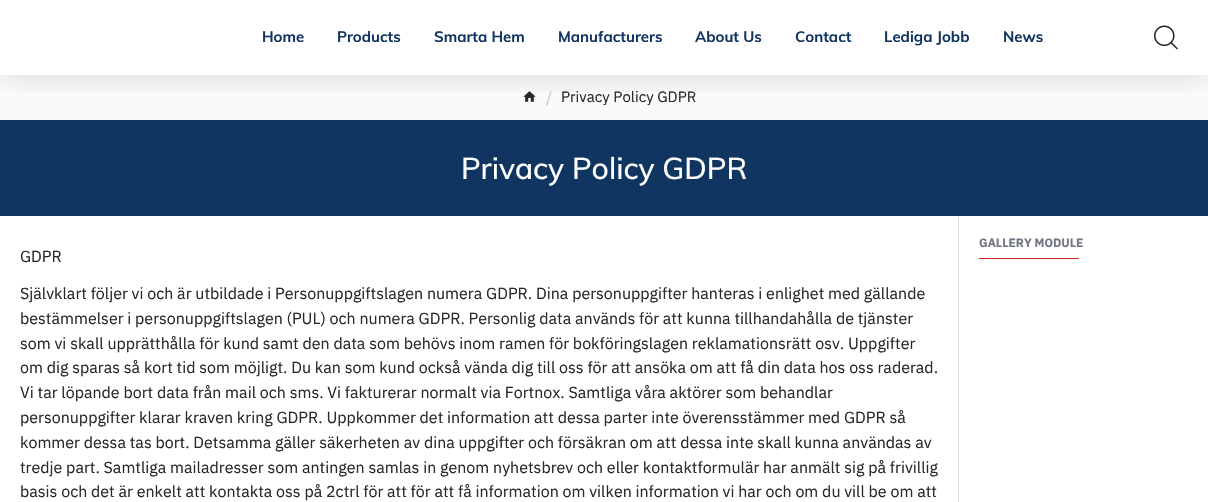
void draw(SkCanvas* canvas) {
  SkPaint paint;
  paint.setAntiAlias(true);
  auto face = [&](const char* family, int weight, float size, bool italic = false) {
    SkFontStyle style(weight, SkFontStyle::kNormal_Width,
      italic ? SkFontStyle::kItalic_Slant : SkFontStyle::kUpright_Slant);
    SkFont result(fontMgr->matchFamilyStyle(family, style), size);
    result.setSubpixel(true);
    return result;
  };
  auto paste = [&](const char* path, float x, float y, float w, float h) {
    auto image = SkImages::DeferredFromEncodedData(SkData::MakeFromFileName(path));
    canvas->drawImageRect(image, SkRect::MakeXYWH(x, y, w, h), SkSamplingOptions());
  };
  canvas->clear(0xffffffff);
  paint.setColor(0xfffafafa);
  canvas->drawRect(SkRect::MakeXYWH(0, 75, 1208, 45), paint);
  paste("img/2.png", 523, 91, 13, 11);
  paint.setColor(0xff113561);
  canvas->drawRect(SkRect::MakeXYWH(0, 120, 1208, 96), paint);
  canvas->save();
  canvas->clipRect(SkRect::MakeXYWH(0, 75, 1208, 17));
  paint.setColor(0x26000000);
  paint.setMaskFilter(SkMaskFilter::MakeBlur(kNormal_SkBlurStyle, 15));
  canvas->drawRect(SkRect::MakeXYWH(5, 10, 1198, 65), paint);
  paint.setMaskFilter(nullptr);
  canvas->restore();
  paste("img/1.png", 1154, 25, 24, 25);
  paint.setColor(0xffdddddd);
  canvas->drawRect(SkRect::MakeXYWH(958, 216, 1, 286), paint);
  paint.setColor(0xffd01e24);
  canvas->drawRect(SkRect::MakeXYWH(979, 258, 100, 1), paint);
  auto f0 = face("Muli", 700, 15);
  paint.setColor(0xff113561);
  {
    const struct { const char* s; float x, y; } items[] = {
      {"Home", 262, 42},
      {"Products", 337, 42},
      {"Smarta Hem", 434, 42},
      {"Manufacturers", 558, 42},
      {"About Us", 695, 42},
      {"Contact", 795, 42},
      {"Lediga Jobb", 884, 42},
      {"News", 1003, 42},
    };
    for (auto [s, x, y] : items) {
      canvas->drawString(s, x, y, f0, paint);
    }
  }
  auto f1 = face("IBM Plex Sans", 400, 16);
  paint.setColor(0xffcccccc);
  canvas->drawString("/", 546, 103, f1, paint);
  auto f2 = face("IBM Plex Sans", 400, 15);
  paint.setColor(0xff29292b);
  canvas->drawString("Privacy Policy GDPR", 561, 102, f2, paint);
  auto f3 = face("Muli", 500, 30);
  paint.setColor(0xffffffff);
  canvas->drawString("Privacy Policy GDPR", 461, 179, f3, paint);
  auto f4 = face("IBM Plex Sans", 700, 12);
  paint.setColor(0xff727684);
  canvas->drawString("GALLERY MODULE", 979, 247, f4, paint);
  paint.setColor(0xff29292b);
  {
    const struct { const char* s; float x, y; } items[] = {
      {"GDPR", 20, 262},
      {"Självklart följer vi och är utbildade i Personuppgiftslagen numera GDPR. Dina personuppgifter hanteras i enlighet med gällande", 20, 299},
      {"bestämmelser i personuppgiftslagen (PUL) och numera GDPR. Personlig data används för att kunna tillhandahålla de tjänster", 20, 324},
      {"som vi skall upprätthålla för kund samt den data som behövs inom ramen för bokföringslagen reklamationsrätt osv. Uppgifter", 20, 349},
      {"om dig sparas så kort tid som möjligt. Du kan som kund också vända dig till oss för att ansöka om att få din data hos oss raderad.", 20, 373},
      {"Vi tar löpande bort data från mail och sms. Vi fakturerar normalt via Fortnox. Samtliga våra aktörer som behandlar", 20, 398},
      {"personuppgifter klarar kraven kring GDPR. Uppkommer det information att dessa parter inte överensstämmer med GDPR så", 20, 423},
      {"kommer dessa tas bort. Detsamma gäller säkerheten av dina uppgifter och försäkran om att dessa inte skall kunna användas av", 20, 448},
      {"tredje part. Samtliga mailadresser som antingen samlas in genom nyhetsbrev och eller kontaktformulär har anmält sig på frivillig", 20, 473},
      {"basis och det är enkelt att kontakta oss på 2ctrl för att för att få information om vilken information vi har och om du vill be om att", 20, 497},
    };
    for (auto [s, x, y] : items) {
      canvas->drawString(s, x, y, f1, paint);
    }
  }
}
